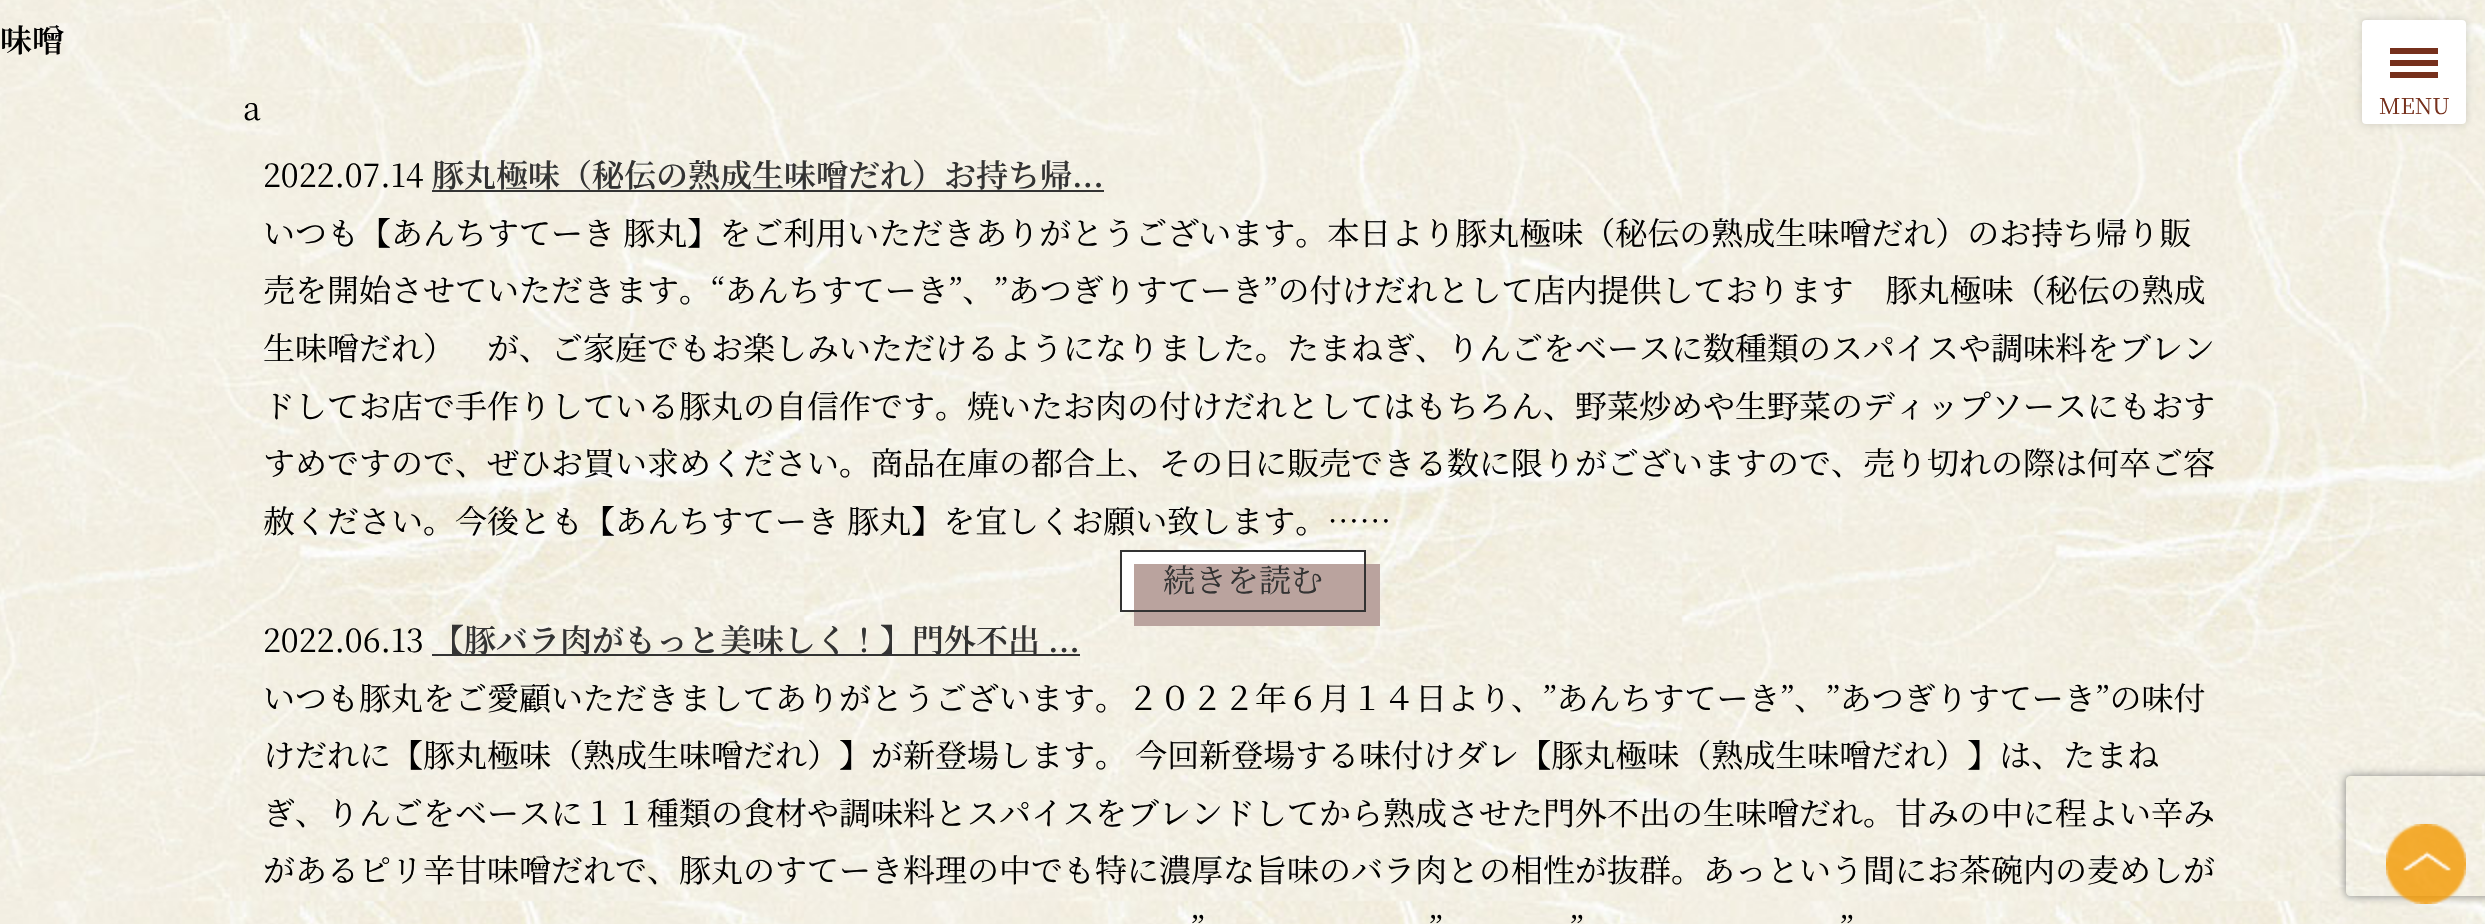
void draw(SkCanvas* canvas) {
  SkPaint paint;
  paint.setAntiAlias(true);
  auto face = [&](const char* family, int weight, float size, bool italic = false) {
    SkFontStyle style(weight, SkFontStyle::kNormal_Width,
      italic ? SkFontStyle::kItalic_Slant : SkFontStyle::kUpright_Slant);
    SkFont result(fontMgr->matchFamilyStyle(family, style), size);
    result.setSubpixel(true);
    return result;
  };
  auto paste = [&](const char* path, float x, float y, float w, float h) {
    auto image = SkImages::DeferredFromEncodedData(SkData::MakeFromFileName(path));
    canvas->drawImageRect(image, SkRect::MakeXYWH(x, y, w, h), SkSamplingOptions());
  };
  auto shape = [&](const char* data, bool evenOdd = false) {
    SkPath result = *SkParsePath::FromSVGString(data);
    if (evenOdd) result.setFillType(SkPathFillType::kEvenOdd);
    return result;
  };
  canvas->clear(0xffffffff);
  paste("img/1.png", 0, 0, 2485, 924);
  {
    const struct { float x, y, w, h; SkColor color; } items[] = {
      {432, 190, 672, 2, 0xff333333},
      {1122, 552, 242, 58, 0xffffffff},
      {1134, 564, 246, 62, 0xffbaa39e},
    };
    for (auto [x, y, w, h, color] : items) {
      paint.setColor(color);
      canvas->drawRect(SkRect::MakeXYWH(x, y, w, h), paint);
    }
  }
  paint.setStroke(true);
  paint.setStrokeWidth(2);
  paint.setColor(0xff333333);
  canvas->drawRect(SkRect::MakeXYWH(1121, 551, 244, 60), paint);
  paint.setStroke(false);
  canvas->drawRect(SkRect::MakeXYWH(432, 654, 648, 2), paint);
  paint.setColor(0x1a000000);
  paint.setMaskFilter(SkMaskFilter::MakeBlur(kNormal_SkBlurStyle, 3));
  canvas->drawRoundRect(SkRect::MakeXYWH(2360, 18, 108, 108), 6, 6, paint);
  paint.setMaskFilter(nullptr);
  paint.setColor(0xffffffff);
  canvas->drawRoundRect(SkRect::MakeXYWH(2362, 20, 104, 104), 4, 4, paint);
  {
    const struct { float x, y, w, h; SkColor color; } items[] = {
      {2390, 60, 48, 6, 0xff76301c},
      {2390, 48, 48, 6, 0xff76301c},
      {2390, 72, 48, 6, 0xff76301c},
    };
    for (auto [x, y, w, h, color] : items) {
      paint.setColor(color);
      canvas->drawRect(SkRect::MakeXYWH(x, y, w, h), paint);
    }
  }
  canvas->save();
  canvas->clipPath(shape("M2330 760H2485V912H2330ZM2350 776H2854C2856 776 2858 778 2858 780V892C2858 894 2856 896 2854 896H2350C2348 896 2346 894 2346 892V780C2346 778 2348 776 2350 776Z", true), true);
  paint.setColor(0xff808080);
  paint.setMaskFilter(SkMaskFilter::MakeBlur(kNormal_SkBlurStyle, 5));
  canvas->drawRoundRect(SkRect::MakeXYWH(2346, 776, 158, 120), 4, 4, paint);
  paint.setMaskFilter(nullptr);
  canvas->restore();
  paste("img/2.png", 2386, 824, 80, 80);
  auto f0 = face("Noto Serif JP", 600, 32);
  paint.setColor(0xff000000);
  canvas->drawString("味噌", 0, 52, f0, paint);
  auto f1 = face("Noto Serif JP", 400, 32);
  canvas->drawString("a", 243, 120, f1, paint);
  canvas->drawString("2022.07.14", 263, 187, f1, paint);
  paint.setColor(0xff333333);
  canvas->drawString("豚丸極味（秘伝の熟成生味噌だれ）お持ち帰...", 432, 187, f0, paint);
  paint.setColor(0xff000000);
  {
    const struct { const char* s; float x, y; } items[] = {
      {"いつも【あんちすてーき 豚丸】をご利用いただきありがとうございます。本日より豚丸極味（秘伝の熟成生味噌だれ）のお持ち帰り販", 263, 245},
      {"売を開始させていただきます。“あんちすてーき”、”あつぎりすてーき”の付けだれとして店内提供しております　豚丸極味（秘伝の熟成", 263, 302},
      {"生味噌だれ）　が、ご家庭でもお楽しみいただけるようになりました。たまねぎ、りんごをベースに数種類のスパイスや調味料をブレン", 263, 360},
      {"ドしてお店で手作りしている豚丸の自信作です。焼いたお肉の付けだれとしてはもちろん、野菜炒めや生野菜のディップソースにもおす", 263, 418},
      {"すめですので、ぜひお買い求めください。商品在庫の都合上、その日に販売できる数に限りがございますので、売り切れの際は何卒ご容", 263, 475},
      {"赦ください。今後とも【あんちすてーき 豚丸】を宜しくお願い致します。……", 263, 533},
    };
    for (auto [s, x, y] : items) {
      canvas->drawString(s, x, y, f1, paint);
    }
  }
  paint.setColor(0xff333333);
  canvas->drawString("続きを読む", 1163, 592, f1, paint);
  paint.setColor(0xff000000);
  canvas->drawString("2022.06.13", 263, 652, f1, paint);
  paint.setColor(0xff333333);
  canvas->drawString("【豚バラ肉がもっと美味しく！】門外不出 ...", 432, 652, f0, paint);
  paint.setColor(0xff000000);
  {
    const struct { const char* s; float x, y; } items[] = {
      {"いつも豚丸をご愛顧いただきましてありがとうございます。２０２２年６月１４日より、”あんちすてーき”、”あつぎりすてーき”の味付", 263, 710},
      {"けだれに【豚丸極味（熟成生味噌だれ）】が新登場します。 今回新登場する味付けダレ【豚丸極味（熟成生味噌だれ）】は、たまね", 263, 767},
      {"ぎ、りんごをベースに１１種類の食材や調味料とスパイスをブレンドしてから熟成させた門外不出の生味噌だれ。甘みの中に程よい辛み", 263, 825},
      {"があるピリ辛甘味噌だれで、豚丸のすてーき料理の中でも特に濃厚な旨味のバラ肉との相性が抜群。あっという間にお茶碗内の麦めしが", 263, 882},
      {"”", 1191, 940},
      {"”", 1429, 940},
      {"”", 1570, 940},
      {"”", 1840, 940},
    };
    for (auto [s, x, y] : items) {
      canvas->drawString(s, x, y, f1, paint);
    }
  }
  auto f2 = face("Noto Serif JP", 400, 22);
  paint.setColor(0xff76301c);
  canvas->drawString("MENU", 2379, 114, f2, paint);
}
